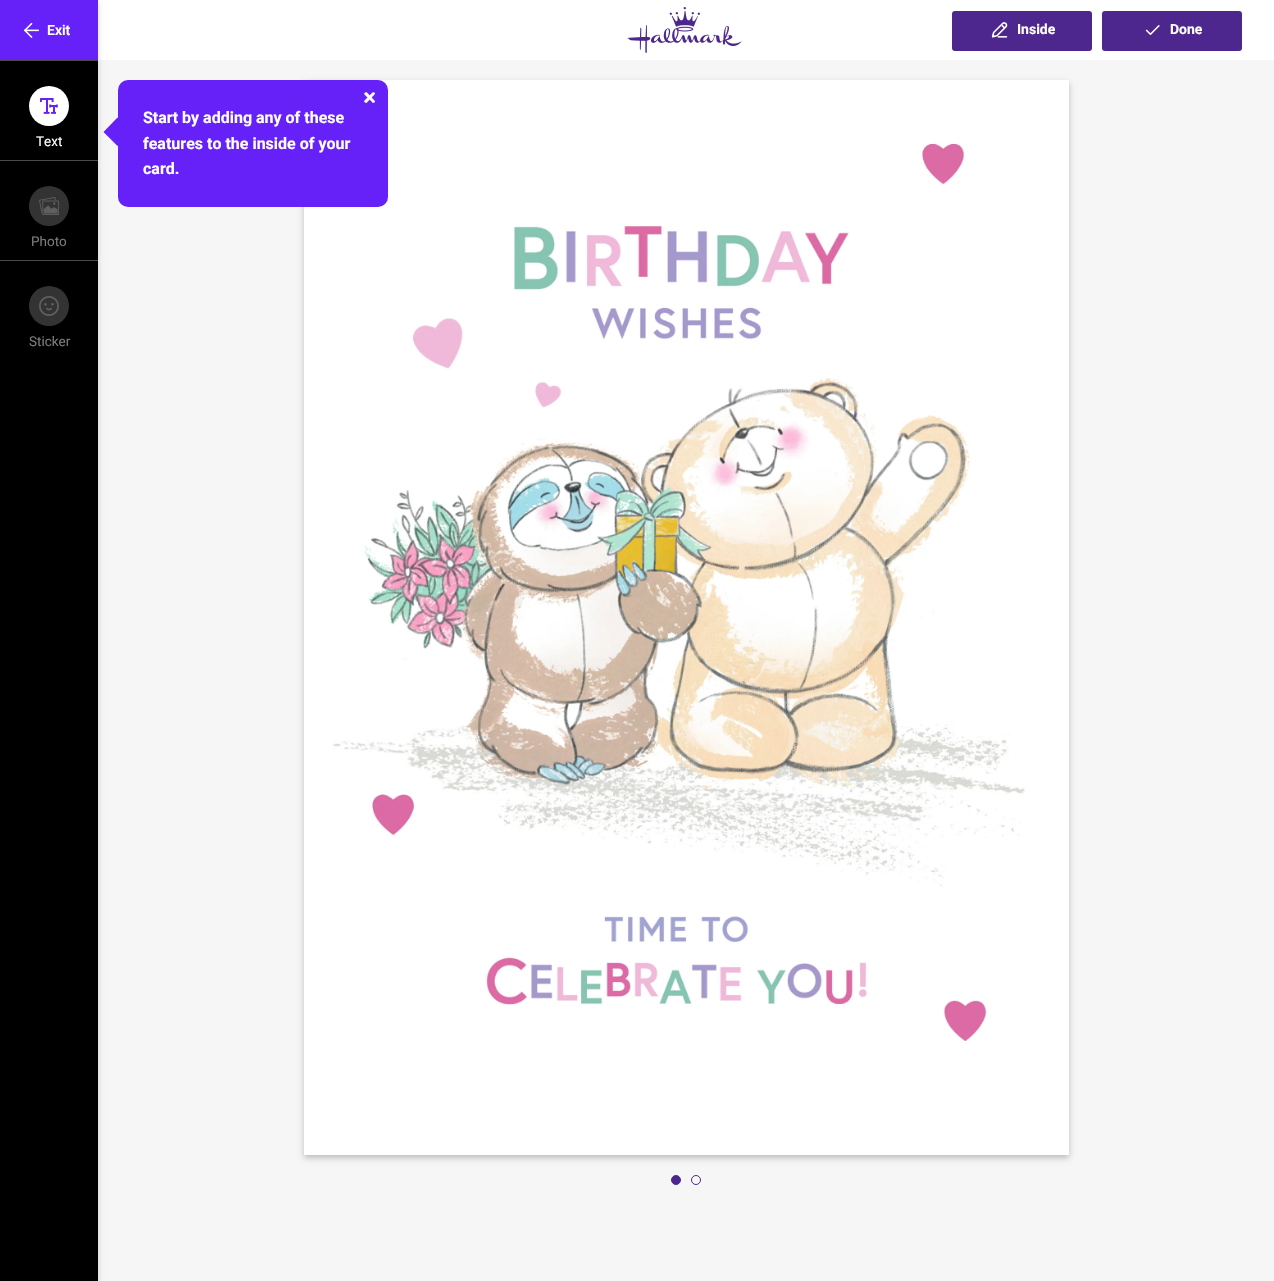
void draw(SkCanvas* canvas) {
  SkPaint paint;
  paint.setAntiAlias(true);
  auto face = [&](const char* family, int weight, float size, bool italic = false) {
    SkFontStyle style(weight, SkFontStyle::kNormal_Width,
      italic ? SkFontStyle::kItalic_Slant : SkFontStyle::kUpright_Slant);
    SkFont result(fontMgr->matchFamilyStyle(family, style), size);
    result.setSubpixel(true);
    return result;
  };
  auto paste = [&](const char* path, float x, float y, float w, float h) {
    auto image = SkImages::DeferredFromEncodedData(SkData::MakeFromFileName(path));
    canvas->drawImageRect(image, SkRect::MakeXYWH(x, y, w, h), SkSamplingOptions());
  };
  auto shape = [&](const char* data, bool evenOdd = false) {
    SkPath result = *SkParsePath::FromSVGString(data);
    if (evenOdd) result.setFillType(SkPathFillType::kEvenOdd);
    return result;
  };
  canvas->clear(0xffffffff);
  paint.setColor(0xfff6f6f7);
  canvas->drawRect(SkRect::MakeXYWH(98, 60, 1176, 1221), paint);
  paint.setColor(0x29000000);
  paint.setMaskFilter(SkMaskFilter::MakeBlur(kNormal_SkBlurStyle, 3));
  canvas->drawRect(SkRect::MakeXYWH(-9, 3, 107, 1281), paint);
  paint.setMaskFilter(nullptr);
  paint.setColor(0xff6621f9);
  canvas->drawRect(SkRect::MakeXYWH(0, 0, 98, 60), paint);
  paste("img/1.png", 24, 22, 15, 16);
  paste("img/2.png", 627, 7, 116, 46);
  paint.setColor(0xff4d278d);
  canvas->drawRoundRect(SkRect::MakeXYWH(952, 11, 140, 40), 3, 3, paint);
  paste("img/3.png", 991, 22, 17, 16);
  canvas->drawRoundRect(SkRect::MakeXYWH(1102, 11, 140, 40), 3, 3, paint);
  paste("img/4.png", 1145, 25, 15, 10);
  paint.setColor(0x3b000000);
  paint.setMaskFilter(SkMaskFilter::MakeBlur(kNormal_SkBlurStyle, 3));
  canvas->drawRect(SkRect::MakeXYWH(304, 83, 765, 1075), paint);
  paint.setMaskFilter(nullptr);
  paste("img/5.png", 304, 80, 765, 1075);
  paint.setColor(0xff4d278d);
  canvas->drawCircle(676, 1180, 4.5f, paint);
  paint.setStroke(true);
  paint.setStrokeWidth(1);
  canvas->drawCircle(676, 1180, 4.5f, paint);
  canvas->drawCircle(696, 1180, 4.5f, paint);
  paint.setStroke(false);
  paint.setColor(0xff000000);
  canvas->drawRect(SkRect::MakeXYWH(0, 61, 98, 1220), paint);
  paint.setColor(0xff4a4a4a);
  canvas->drawRect(SkRect::MakeXYWH(0, 60, 98, 1), paint);
  paint.setColor(0xffffffff);
  canvas->drawCircle(49, 106, 20, paint);
  paste("img/6.png", 40, 98, 18, 16);
  paint.setColor(0xff6621f9);
  canvas->drawRoundRect(SkRect::MakeXYWH(118, 80, 270, 127), 10, 10, paint);
  paint.setColor(0xffffffff);
  canvas->drawPath(shape("M374.5 94.5L366.5 103L365 102.5C363 101.5 365 100 366 99L372.5 92.5C374 91.5 376 93.5 374.5 94.5Z"), paint);
  canvas->drawPath(shape("M367 92.5L373 99C374 100 376 101.5 374.5 102.5L373 103L364.5 94.5C363.5 93 365.5 91.5 367 92.5Z"), paint);
  paint.setColor(0xff6621f9);
  canvas->drawPath(shape("M117.5 117.5L131.5 132L117.5 146L103.5 132Z"), paint);
  paint.setColor(0xff4a4a4a);
  canvas->drawRect(SkRect::MakeXYWH(0, 160, 98, 1), paint);
  paint.setColor(0xff333333);
  canvas->drawCircle(49, 206, 20, paint);
  paste("img/7.png", 39, 197, 20, 18);
  paint.setColor(0xff4a4a4a);
  canvas->drawRect(SkRect::MakeXYWH(0, 260, 98, 1), paint);
  paint.setColor(0xff333333);
  canvas->drawCircle(49, 306, 20, paint);
  paste("img/8.png", 39, 296, 20, 20);
  auto f0 = face("Roboto", 600, 14);
  paint.setColor(0xffffffff);
  canvas->drawString("Exit", 47, 35, f0, paint);
  auto f1 = face("Roboto", 700, 14);
  canvas->drawString("Inside", 1017, 34, f1, paint);
  canvas->drawString("Done", 1170, 34, f1, paint);
  auto f2 = face("Roboto", 400, 13.5f);
  canvas->drawString("Text", 36, 146, f2, paint);
  auto f3 = face("Roboto", 700, 16);
  {
    const struct { const char* s; float x, y; } items[] = {
      {"Start by adding any of these", 143, 123},
      {"features to the inside of your", 143, 149},
      {"card.", 143, 174},
    };
    for (auto [s, x, y] : items) {
      canvas->drawString(s, x, y, f3, paint);
    }
  }
  paint.setColor(0xff7b7b7b);
  canvas->drawString("Photo", 31, 246, f2, paint);
  canvas->drawString("Sticker", 29, 346, f2, paint);
}
